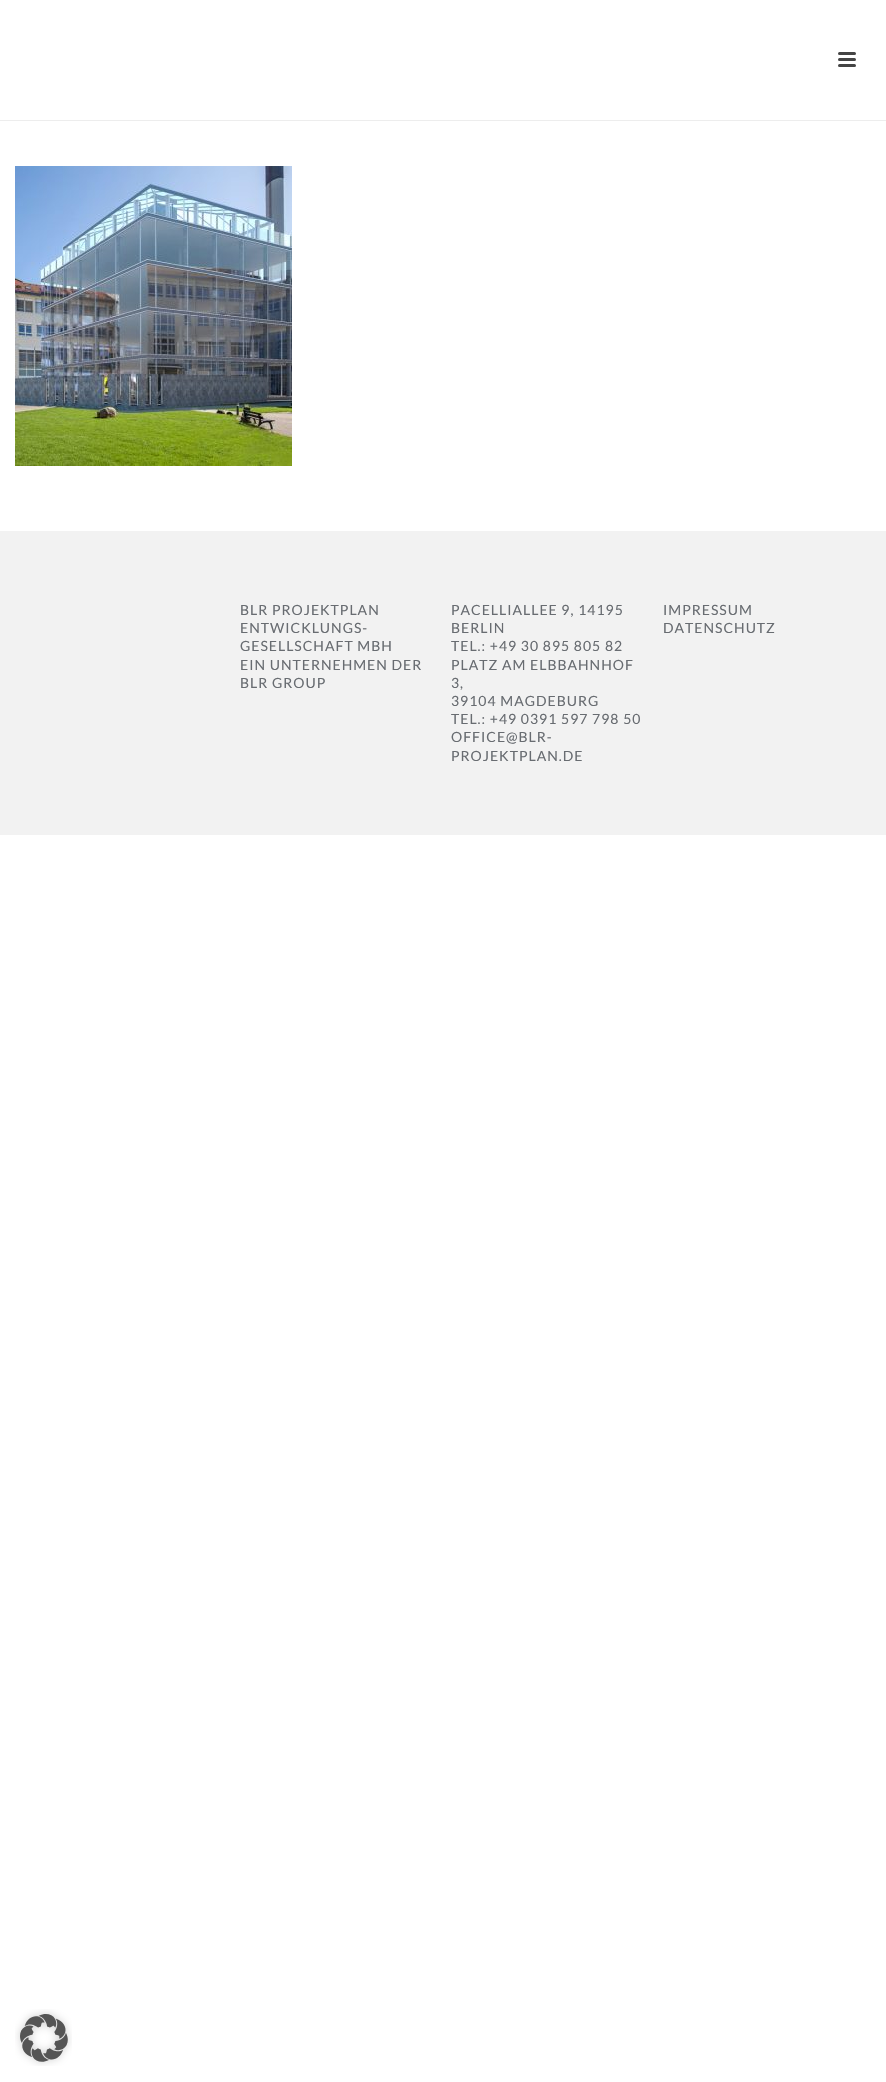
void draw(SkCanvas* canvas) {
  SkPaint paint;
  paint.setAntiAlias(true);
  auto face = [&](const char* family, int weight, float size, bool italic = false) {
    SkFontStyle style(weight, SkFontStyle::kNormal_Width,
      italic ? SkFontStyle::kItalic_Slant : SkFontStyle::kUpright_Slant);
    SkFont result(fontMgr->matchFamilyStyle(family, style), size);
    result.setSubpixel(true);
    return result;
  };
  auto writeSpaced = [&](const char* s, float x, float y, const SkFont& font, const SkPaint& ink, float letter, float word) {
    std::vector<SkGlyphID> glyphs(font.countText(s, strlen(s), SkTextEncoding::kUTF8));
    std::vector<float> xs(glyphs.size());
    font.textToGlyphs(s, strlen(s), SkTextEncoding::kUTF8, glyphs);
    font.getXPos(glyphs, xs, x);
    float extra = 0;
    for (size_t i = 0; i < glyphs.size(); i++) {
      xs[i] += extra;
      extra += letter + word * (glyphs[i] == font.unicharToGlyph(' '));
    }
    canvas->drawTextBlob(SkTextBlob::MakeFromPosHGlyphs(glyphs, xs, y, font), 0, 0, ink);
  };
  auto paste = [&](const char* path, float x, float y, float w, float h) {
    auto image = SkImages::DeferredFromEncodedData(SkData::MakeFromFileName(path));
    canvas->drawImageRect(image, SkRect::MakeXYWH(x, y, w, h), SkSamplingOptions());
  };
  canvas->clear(0xffffffff);
  paint.setColor(0xffededed);
  canvas->drawRect(SkRect::MakeXYWH(0, 120, 886, 1), paint);
  paint.setColor(0xff444444);
  canvas->drawRoundRect(SkRect::MakeXYWH(838, 52, 18, 3), 1.5f, 1.5f, paint);
  canvas->drawRoundRect(SkRect::MakeXYWH(838, 58, 18, 3), 1.5f, 1.5f, paint);
  canvas->drawRoundRect(SkRect::MakeXYWH(838, 64, 18, 3), 1.5f, 1.5f, paint);
  paste("img/1.png", 15, 166, 277, 300);
  paint.setColor(0xfff2f2f2);
  canvas->drawRect(SkRect::MakeXYWH(0, 531, 886, 304), paint);
  paste("img/2.png", 15, 2009, 57, 57);
  auto f0 = face("Lato", 400, 14);
  paint.setColor(0xff686c71);
  {
    const struct { const char* s; float x, y; } items[] = {
      {"BLR PROJEKTPLAN", 240, 615},
      {"ENTWICKLUNGS-", 240, 633},
      {"GESELLSCHAFT MBH", 240, 651},
      {"EIN UNTERNEHMEN DER", 240, 670},
      {"BLR GROUP", 240, 688},
      {"PACELLIALLEE 9, 14195", 451, 615},
      {"BERLIN", 451, 633},
      {"TEL.: +49 30 895 805 82", 451, 651},
      {"PLATZ AM ELBBAHNHOF", 451, 670},
      {"3,", 451, 688},
      {"39104 MAGDEBURG", 451, 706},
      {"TEL.: +49 0391 597 798 50", 451, 724},
      {"OFFICE@BLR-", 451, 742},
      {"PROJEKTPLAN.DE", 451, 761},
      {"IMPRESSUM", 663, 615},
      {"DATENSCHUTZ", 663, 633},
    };
    for (auto [s, x, y] : items) {
      writeSpaced(s, x, y, f0, paint, 1, 0);
    }
  }
}
